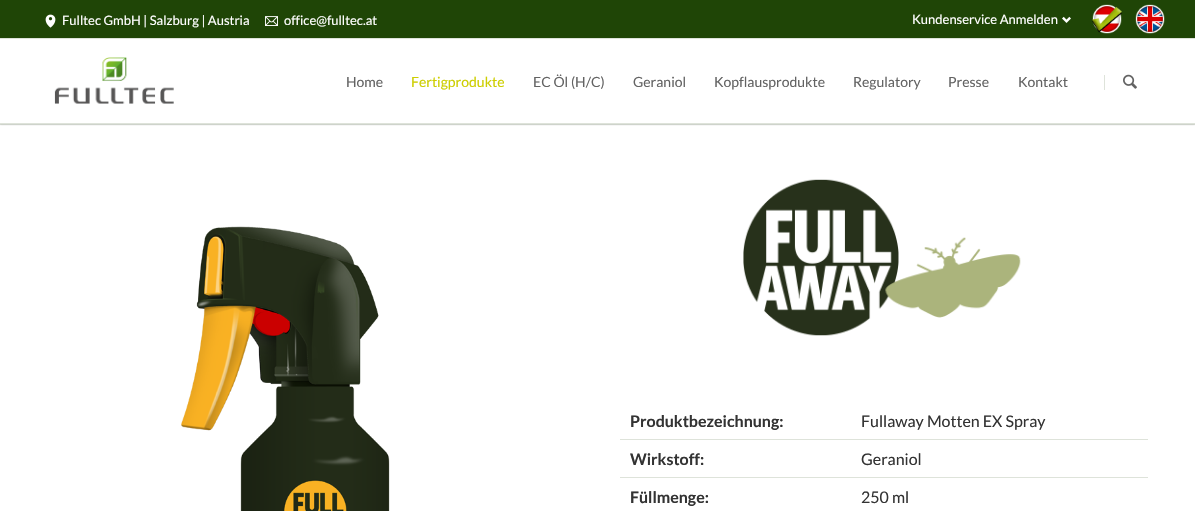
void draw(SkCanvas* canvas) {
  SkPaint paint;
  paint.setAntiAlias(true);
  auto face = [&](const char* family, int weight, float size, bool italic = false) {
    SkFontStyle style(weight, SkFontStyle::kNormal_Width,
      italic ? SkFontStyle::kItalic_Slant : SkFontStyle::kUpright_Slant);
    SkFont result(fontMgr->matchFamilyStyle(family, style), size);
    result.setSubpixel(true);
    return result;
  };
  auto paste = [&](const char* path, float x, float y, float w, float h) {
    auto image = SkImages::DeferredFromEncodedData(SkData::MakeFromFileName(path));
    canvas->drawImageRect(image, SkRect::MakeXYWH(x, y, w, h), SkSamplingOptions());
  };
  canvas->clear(0xffffffff);
  paint.setColor(0xff1f4506);
  canvas->drawRect(SkRect::MakeXYWH(0, 0, 1195, 38), paint);
  paint.setColor(0xffdee3da);
  canvas->drawRect(SkRect::MakeXYWH(0, 38, 1195, 1), paint);
  paste("img/1.png", 45, 14, 11, 14);
  paste("img/2.png", 265, 16, 13, 10);
  paste("img/3.png", 1062, 16, 9, 7);
  paste("img/4.png", 1092, 4, 30, 30);
  paste("img/5.png", 1135, 4, 30, 30);
  canvas->drawRect(SkRect::MakeXYWH(0, 124, 1195, 1), paint);
  canvas->save();
  canvas->clipRect(SkRect::MakeXYWH(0, 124, 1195, 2));
  paint.setColor(0x1a000000);
  paint.setMaskFilter(SkMaskFilter::MakeBlur(kNormal_SkBlurStyle, 1));
  canvas->drawRect(SkRect::MakeXYWH(0, 40, 1195, 85), paint);
  paint.setMaskFilter(nullptr);
  canvas->restore();
  paint.setColor(0xffdee3da);
  canvas->drawRect(SkRect::MakeXYWH(0, 123, 1195, 1), paint);
  paste("img/6.png", 54, 57, 120, 47);
  canvas->drawRect(SkRect::MakeXYWH(1104, 75, 1, 15), paint);
  paste("img/7.png", 1123, 74, 14, 15);
  paste("img/8.png", 181, 226, 209, 285);
  paste("img/9.png", 743, 179, 278, 157);
  canvas->drawRect(SkRect::MakeXYWH(620, 439, 528, 1), paint);
  canvas->drawRect(SkRect::MakeXYWH(620, 477, 528, 1), paint);
  auto f0 = face("Lato", 400, 13);
  paint.setColor(0xffffffff);
  {
    const struct { const char* s; float x, y; } items[] = {
      {"Fulltec GmbH | Salzburg | Austria", 62, 25},
      {"office@fulltec.at", 284, 25},
      {"Kundenservice Anmelden", 912, 24},
    };
    for (auto [s, x, y] : items) {
      canvas->drawString(s, x, y, f0, paint);
    }
  }
  auto f1 = face("Lato", 400, 14);
  paint.setColor(0xff636363);
  canvas->drawString("Home", 346, 87, f1, paint);
  paint.setColor(0xffcdce00);
  canvas->drawString("Fertigprodukte", 411, 87, f1, paint);
  paint.setColor(0xff636363);
  {
    const struct { const char* s; float x, y; } items[] = {
      {"EC Öl (H/C)", 533, 87},
      {"Geraniol", 633, 87},
      {"Kopflausprodukte", 714, 87},
      {"Regulatory", 853, 87},
      {"Presse", 948, 87},
      {"Kontakt", 1018, 87},
    };
    for (auto [s, x, y] : items) {
      canvas->drawString(s, x, y, f1, paint);
    }
  }
  auto f2 = face("Lato", 700, 16);
  paint.setColor(0xff333333);
  canvas->drawString("Produktbezeichnung:", 630, 427, f2, paint);
  auto f3 = face("Lato", 400, 16);
  canvas->drawString("Fullaway Motten EX Spray", 861, 427, f3, paint);
  canvas->drawString("Wirkstoff:", 630, 465, f2, paint);
  canvas->drawString("Geraniol", 861, 465, f3, paint);
  canvas->drawString("Füllmenge:", 630, 503, f2, paint);
  canvas->drawString("250 ml", 861, 503, f3, paint);
}
